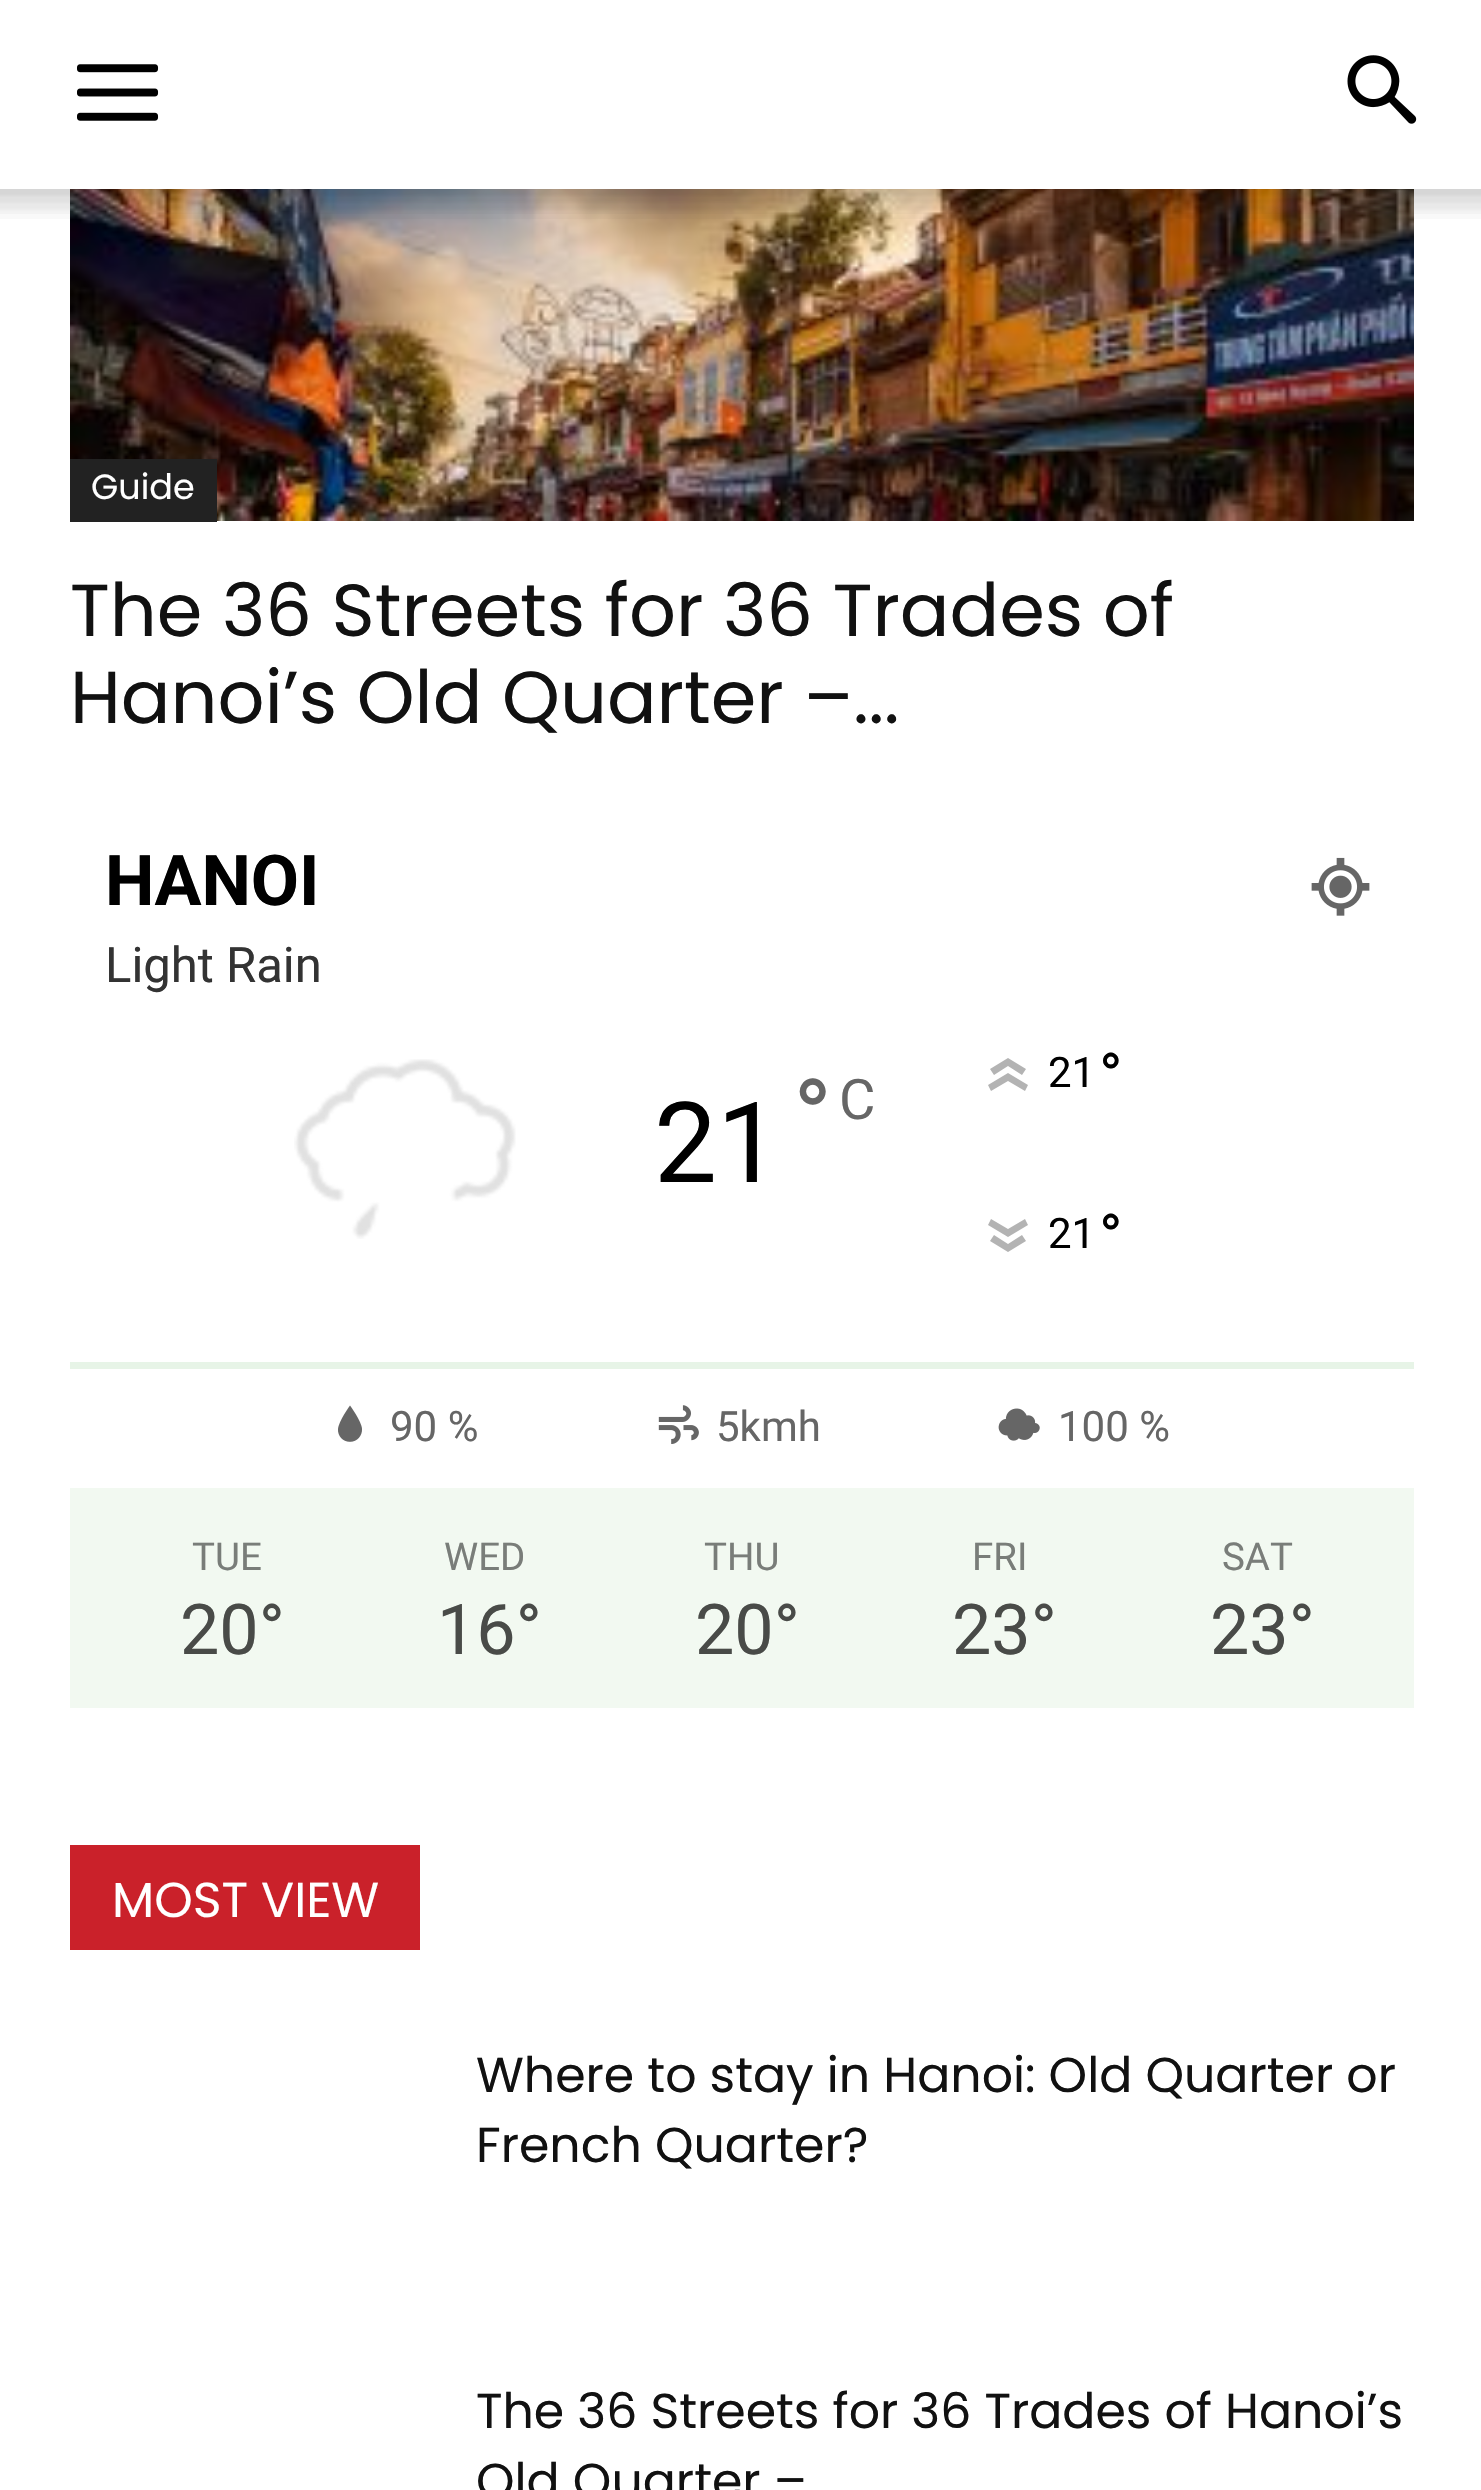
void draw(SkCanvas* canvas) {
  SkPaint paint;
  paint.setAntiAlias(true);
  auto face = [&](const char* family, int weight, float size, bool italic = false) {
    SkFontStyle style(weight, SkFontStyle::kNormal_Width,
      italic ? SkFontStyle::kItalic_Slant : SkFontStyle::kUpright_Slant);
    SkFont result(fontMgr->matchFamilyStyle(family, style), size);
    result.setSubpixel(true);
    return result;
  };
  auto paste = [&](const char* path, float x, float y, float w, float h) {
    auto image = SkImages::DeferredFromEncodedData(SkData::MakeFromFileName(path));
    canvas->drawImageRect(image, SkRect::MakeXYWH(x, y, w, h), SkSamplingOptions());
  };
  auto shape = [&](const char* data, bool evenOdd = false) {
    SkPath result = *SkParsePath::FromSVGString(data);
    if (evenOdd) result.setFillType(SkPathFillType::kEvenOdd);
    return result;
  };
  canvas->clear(0xffffffff);
  paste("img/1.png", 77, 64, 82, 57);
  paste("img/2.png", 1347, 55, 70, 69);
  paste("img/5.png", 70, 189, 1344, 332);
  paste("img/3.png", 0, 189, 1481, 30);
  paste("img/4.png", 0, 189, 1481, 25);
  paint.setColor(0xff222222);
  canvas->drawRect(SkRect::MakeXYWH(70, 459, 147, 63), paint);
  paste("img/6.png", 1311, 857, 59, 59);
  paste("img/7.png", 294, 1059, 222, 180);
  paint.setColor(0xffb3b3b3);
  canvas->drawPath(shape("M1028 1085L1025 1091L1008 1081L991 1091L988 1085L1008 1073ZM1008 1066L1022 1075L1026 1069L1008 1058L990 1069L994 1075Z"), paint);
  canvas->drawPath(shape("M988 1225L991 1219L1008 1229L1025 1219L1028 1225L1008 1237ZM1008 1244L994 1235L990 1241L1008 1252L1026 1241L1022 1235Z"), paint);
  paint.setColor(0xffe7f4e7);
  canvas->drawRect(SkRect::MakeXYWH(70, 1362, 1344, 7), paint);
  paste("img/8.png", 338, 1405, 24, 37);
  paste("img/9.png", 658, 1405, 41, 39);
  paste("img/10.png", 998, 1408, 42, 33);
  paint.setColor(0xfff2f9f1);
  canvas->drawRect(SkRect::MakeXYWH(70, 1488, 1344, 220), paint);
  paint.setColor(0xffca212a);
  canvas->drawRect(SkRect::MakeXYWH(70, 1845, 350, 105), paint);
  auto f0 = face("Poppins", 400, 35);
  paint.setColor(0xffffffff);
  canvas->drawString("Guide", 91, 499, f0, paint);
  auto f1 = face("Poppins", 400, 73.5f);
  paint.setColor(0xff111111);
  canvas->drawString("The 36 Streets for 36 Trades of", 70, 636, f1, paint);
  canvas->drawString("Hanoi’s Old Quarter –...", 70, 723, f1, paint);
  auto f2 = face("Roboto", 700, 70);
  paint.setColor(0xff000000);
  canvas->drawString("HANOI", 105, 905, f2, paint);
  auto f3 = face("Roboto", 400, 49);
  paint.setColor(0xff333333);
  canvas->drawString("Light Rain", 105, 982, f3, paint);
  auto f4 = face("Roboto", 400, 112);
  paint.setColor(0xff000000);
  canvas->drawString("21", 654, 1182, f4, paint);
  auto f5 = face("Roboto", 400, 105);
  paint.setColor(0xff666666);
  canvas->drawString("°", 793, 1154, f5, paint);
  auto f6 = face("Roboto", 400, 56);
  canvas->drawString("C", 839, 1119, f6, paint);
  auto f7 = face("Roboto", 400, 42);
  paint.setColor(0xff000000);
  canvas->drawString("21", 1048, 1087, f7, paint);
  auto f8 = face("Roboto", 400, 63);
  canvas->drawString("°", 1099, 1098, f8, paint);
  canvas->drawString("21", 1048, 1248, f7, paint);
  canvas->drawString("°", 1099, 1259, f8, paint);
  paint.setColor(0xff666666);
  {
    const struct { const char* s; float x, y; } items[] = {
      {"90 %", 390, 1441},
      {"5kmh", 716, 1441},
      {"100 %", 1058, 1441},
    };
    for (auto [s, x, y] : items) {
      canvas->drawString(s, x, y, f7, paint);
    }
  }
  auto f9 = face("Roboto", 400, 38.5f);
  paint.setColor(0xff797d79);
  canvas->drawString("TUE", 192, 1570, f9, paint);
  auto f10 = face("Roboto", 400, 70);
  paint.setColor(0xff494b48);
  canvas->drawString("20°", 180, 1654, f10, paint);
  paint.setColor(0xff797d79);
  canvas->drawString("WED", 444, 1570, f9, paint);
  paint.setColor(0xff494b48);
  canvas->drawString("16°", 437, 1654, f10, paint);
  paint.setColor(0xff797d79);
  canvas->drawString("THU", 704, 1570, f9, paint);
  paint.setColor(0xff494b48);
  canvas->drawString("20°", 695, 1654, f10, paint);
  paint.setColor(0xff797d79);
  canvas->drawString("FRI", 972, 1570, f9, paint);
  paint.setColor(0xff494b48);
  canvas->drawString("23°", 952, 1654, f10, paint);
  paint.setColor(0xff797d79);
  canvas->drawString("SAT", 1222, 1570, f9, paint);
  paint.setColor(0xff494b48);
  canvas->drawString("23°", 1210, 1654, f10, paint);
  auto f11 = face("Poppins", 400, 49);
  paint.setColor(0xffffffff);
  canvas->drawString("MOST VIEW", 112, 1917, f11, paint);
  paint.setColor(0xff111111);
  {
    const struct { const char* s; float x, y; } items[] = {
      {"Where to stay in Hanoi: Old Quarter or", 476, 2092},
      {"French Quarter?", 476, 2162},
      {"The 36 Streets for 36 Trades of Hanoi’s", 476, 2428},
      {"Old Quarter –", 476, 2498},
    };
    for (auto [s, x, y] : items) {
      canvas->drawString(s, x, y, f11, paint);
    }
  }
}
